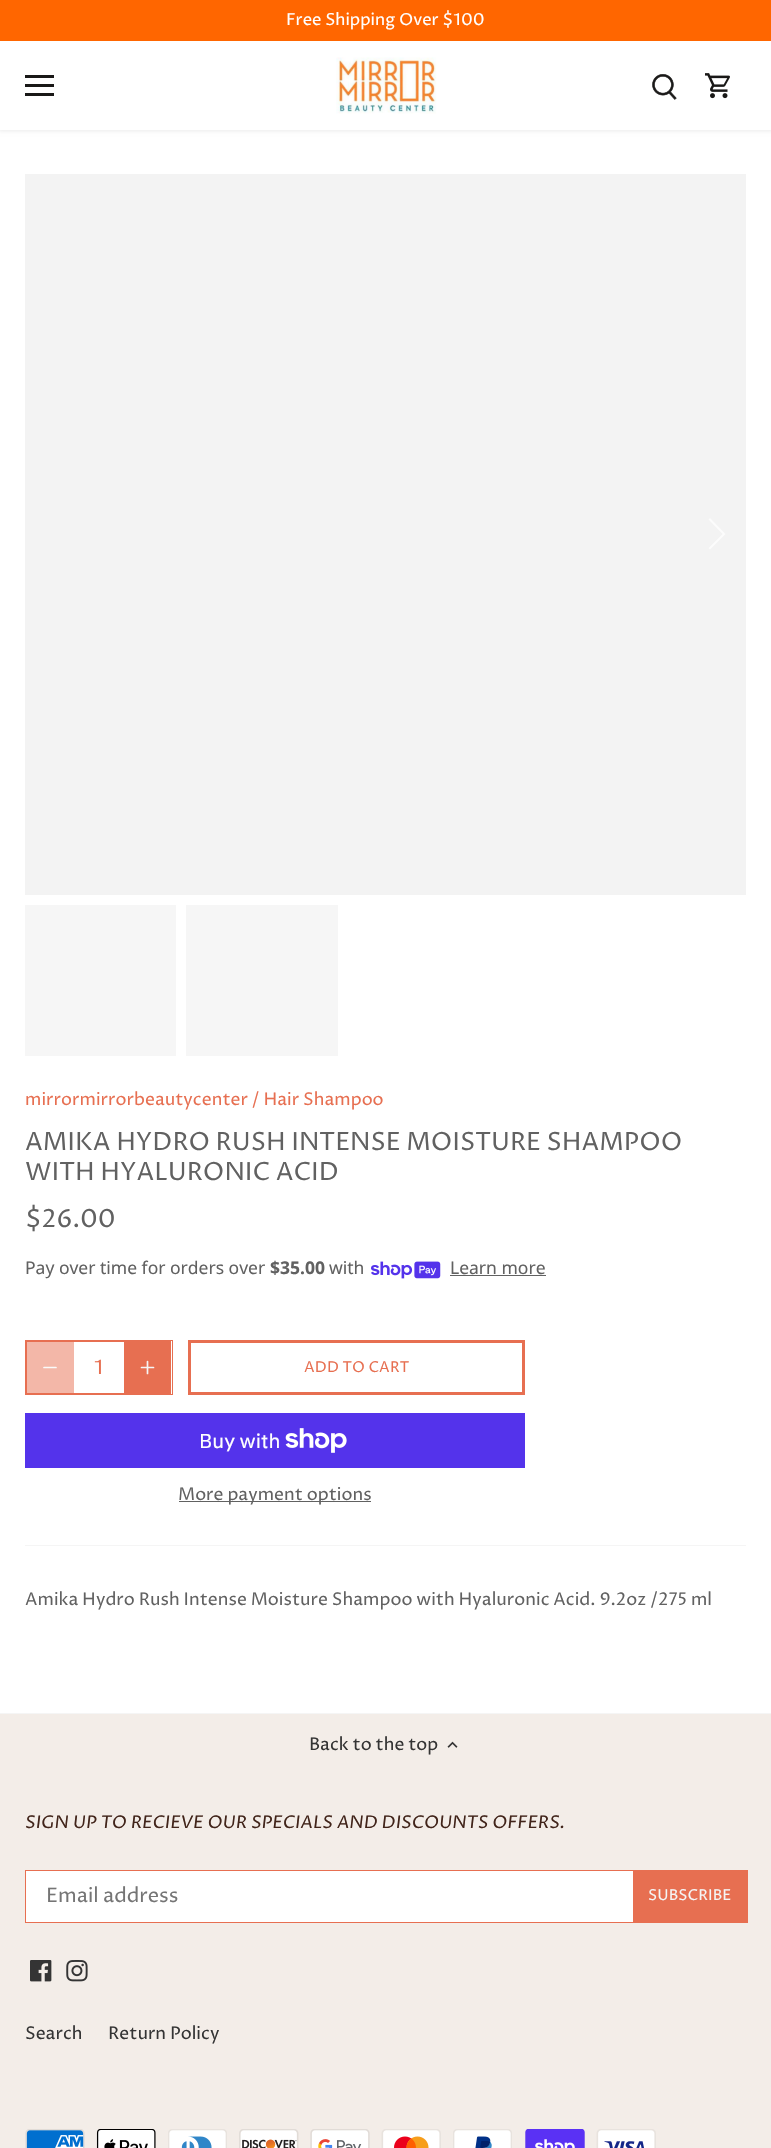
void draw(SkCanvas* canvas) {
  SkPaint paint;
  paint.setAntiAlias(true);
  auto face = [&](const char* family, int weight, float size, bool italic = false) {
    SkFontStyle style(weight, SkFontStyle::kNormal_Width,
      italic ? SkFontStyle::kItalic_Slant : SkFontStyle::kUpright_Slant);
    SkFont result(fontMgr->matchFamilyStyle(family, style), size);
    result.setSubpixel(true);
    return result;
  };
  auto writeSpaced = [&](const char* s, float x, float y, const SkFont& font, const SkPaint& ink, float letter, float word) {
    std::vector<SkGlyphID> glyphs(font.countText(s, strlen(s), SkTextEncoding::kUTF8));
    std::vector<float> xs(glyphs.size());
    font.textToGlyphs(s, strlen(s), SkTextEncoding::kUTF8, glyphs);
    font.getXPos(glyphs, xs, x);
    float extra = 0;
    for (size_t i = 0; i < glyphs.size(); i++) {
      xs[i] += extra;
      extra += letter + word * (glyphs[i] == font.unicharToGlyph(' '));
    }
    canvas->drawTextBlob(SkTextBlob::MakeFromPosHGlyphs(glyphs, xs, y, font), 0, 0, ink);
  };
  auto paste = [&](const char* path, float x, float y, float w, float h) {
    auto image = SkImages::DeferredFromEncodedData(SkData::MakeFromFileName(path));
    canvas->drawImageRect(image, SkRect::MakeXYWH(x, y, w, h), SkSamplingOptions());
  };
  auto shape = [&](const char* data, bool evenOdd = false) {
    SkPath result = *SkParsePath::FromSVGString(data);
    if (evenOdd) result.setFillType(SkPathFillType::kEvenOdd);
    return result;
  };
  canvas->clear(0xfff3ede8);
  paint.setColor(0xffffffff);
  canvas->drawRect(SkRect::MakeXYWH(0, 130, 771, 1583), paint);
  paint.setColor(0x14000000);
  paint.setMaskFilter(SkMaskFilter::MakeBlur(kNormal_SkBlurStyle, 2));
  canvas->drawRect(SkRect::MakeXYWH(-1, 40, 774, 91), paint);
  paint.setMaskFilter(nullptr);
  {
    const struct { float x, y, w, h; SkColor color; } items[] = {
      {0, 0, 771, 41, 0xffff6600},
      {0, 41, 771, 89, 0xffffffff},
      {25, 75, 29, 3, 0xff191817},
      {25, 84, 29, 3, 0xff191817},
      {25, 93, 29, 3, 0xff191817},
    };
    for (auto [x, y, w, h, color] : items) {
      paint.setColor(color);
      canvas->drawRect(SkRect::MakeXYWH(x, y, w, h), paint);
    }
  }
  paste("img/1.png", 336, 57, 101, 57);
  paste("img/2.png", 652, 74, 25, 26);
  paste("img/3.png", 705, 73, 25, 26);
  paint.setColor(0xfff3f3f3);
  canvas->drawRect(SkRect::MakeXYWH(25, 174, 721, 721), paint);
  paint.setColor(0xfffcfcfc);
  canvas->drawPath(shape("M710 518L708.5 519.5L722.5 534L708.5 548L710 549.5L725.5 534Z"), paint);
  paint.setColor(0xfff6f6f6);
  canvas->drawRect(SkRect::MakeXYWH(25, 905, 151, 151), paint);
  canvas->drawRect(SkRect::MakeXYWH(186, 905, 152, 151), paint);
  paste("img/4.png", 371, 1261, 70, 18);
  paint.setColor(0xff616161);
  canvas->drawRect(SkRect::MakeXYWH(450, 1275, 96, 1), paint);
  paint.setStroke(true);
  paint.setStrokeWidth(1);
  paint.setColor(0xffe76f51);
  canvas->drawRect(SkRect::MakeXYWH(26.5f, 1341.5f, 144, 52), paint);
  canvas->drawRect(SkRect::MakeXYWH(25.5f, 1340.5f, 147, 54), paint);
  paint.setStroke(false);
  paint.setColor(0x80e76f51);
  canvas->drawRect(SkRect::MakeXYWH(27, 1342, 47, 51), paint);
  paint.setStroke(true);
  paint.setStrokeWidth(1.7f);
  paint.setStrokeCap(SkPaint::kRound_Cap);
  paint.setStrokeJoin(SkPaint::kRound_Join);
  paint.setColor(0xfffafafa);
  canvas->drawPath(shape("M44 1367.5H56"), paint);
  paint.setStroke(false);
  paint.setColor(0xffe76f51);
  canvas->drawRect(SkRect::MakeXYWH(124, 1342, 46, 51), paint);
  paint.setStroke(true);
  paint.setColor(0xfff5f5f5);
  canvas->drawPath(shape("M147.5 1361.5V1373.5M141.5 1367.5H153.5"), paint);
  paint.setStrokeWidth(3);
  paint.setStrokeCap(SkPaint::kButt_Cap);
  paint.setStrokeJoin(SkPaint::kMiter_Join);
  paint.setColor(0xffe76f51);
  canvas->drawRect(SkRect::MakeXYWH(189.5f, 1341.5f, 334, 52), paint);
  paint.setStroke(false);
  paint.setColor(0xff5433eb);
  canvas->drawRect(SkRect::MakeXYWH(25, 1413, 500, 55), paint);
  paste("img/5.png", 285, 1428, 62, 25);
  {
    const struct { float x, y, w, h; SkColor color; } items[] = {
      {179, 1501, 192, 1, 0xff616161},
      {25, 1545, 721, 1, 0xfff5f5f5},
      {0, 1713, 771, 1, 0xfff5f5f5},
    };
    for (auto [x, y, w, h, color] : items) {
      paint.setColor(color);
      canvas->drawRect(SkRect::MakeXYWH(x, y, w, h), paint);
    }
  }
  paste("img/6.png", 447, 1741, 11, 7);
  paint.setColor(0xffffffff);
  canvas->drawRect(SkRect::MakeXYWH(26, 1871, 607, 51), paint);
  paint.setStroke(true);
  paint.setStrokeWidth(1);
  paint.setColor(0xffe76f51);
  canvas->drawRect(SkRect::MakeXYWH(25.5f, 1870.5f, 720, 52), paint);
  paint.setStroke(false);
  canvas->drawRect(SkRect::MakeXYWH(633, 1870, 115, 53), paint);
  paste("img/7.png", 30, 1960, 22, 22);
  paste("img/8.png", 66, 1960, 22, 22);
  paste("img/9.png", 25, 2129, 60, 19);
  paste("img/10.png", 96, 2129, 60, 19);
  paste("img/11.png", 168, 2129, 59, 19);
  paste("img/12.png", 239, 2129, 60, 19);
  paste("img/13.png", 310, 2129, 60, 19);
  paste("img/14.png", 381, 2129, 60, 19);
  paste("img/15.png", 453, 2129, 59, 19);
  paste("img/16.png", 525, 2129, 60, 19);
  paste("img/17.png", 596, 2129, 60, 19);
  auto f0 = face("Proza Libre", 400, 16.6f);
  paint.setColor(0xffffffff);
  canvas->drawString("Free Shipping Over $100", 286, 25, f0, paint);
  auto f1 = face("Proza Libre", 400, 17.5f);
  paint.setColor(0xffe76f51);
  canvas->drawString("mirrormirrorbeautycenter / Hair Shampoo", 25, 1105, f1, paint);
  auto f2 = face("Proza Libre", 400, 25);
  paint.setColor(0xff616161);
  {
    const struct { const char* s; float x, y; } items[] = {
      {"AMIKA HYDRO RUSH INTENSE MOISTURE SHAMPOO", 25, 1150},
      {"WITH HYALURONIC ACID", 25, 1180},
      {"$26.00", 25, 1227},
    };
    for (auto [s, x, y] : items) {
      canvas->drawString(s, x, y, f2, paint);
    }
  }
  auto f3 = face("Noto Sans", 400, 17.5f);
  canvas->drawString("Pay over time for orders over", 25, 1274, f3, paint);
  auto f4 = face("Noto Sans", 700, 17.5f);
  canvas->drawString("$35.00", 270, 1274, f4, paint);
  canvas->drawString("with", 329, 1274, f3, paint);
  canvas->drawString("Learn more", 450, 1274, f3, paint);
  auto f5 = face("Proza Libre", 400, 20);
  paint.setColor(0xffe76f51);
  canvas->drawString("1", 94, 1374, f5, paint);
  auto f6 = face("Proza Libre", 400, 15);
  writeSpaced("ADD TO CART", 304, 1372, f6, paint, 0.1f, 0);
  auto f7 = face("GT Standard", 400, 20);
  paint.setColor(0xffffffff);
  canvas->drawString("Buy with", 199, 1448, f7, paint);
  paint.setColor(0xff616161);
  canvas->drawString("More payment options", 178, 1500, f1, paint);
  canvas->drawString("Amika Hydro Rush Intense Moisture Shampoo with Hyaluronic Acid. 9.2oz /275 ml", 25, 1605, f1, paint);
  paint.setColor(0xff343434);
  canvas->drawString("Back to the top", 309, 1750, f1, paint);
  auto f8 = face("Proza Libre", 400, 17.5f, true);
  paint.setColor(0xff41241a);
  canvas->drawString("SIGN UP TO RECIEVE OUR SPECIALS AND DISCOUNTS OFFERS.", 25, 1828, f8, paint);
  paint.setColor(0xff757575);
  canvas->drawString("Email address", 46, 1902, f5, paint);
  paint.setColor(0xfff5f5f5);
  writeSpaced("SUBSCRIBE", 648, 1900, f6, paint, 0.1f, 0);
  paint.setColor(0xff343434);
  canvas->drawString("Search", 25, 2039, f1, paint);
  canvas->drawString("Return Policy", 108, 2039, f1, paint);
}
